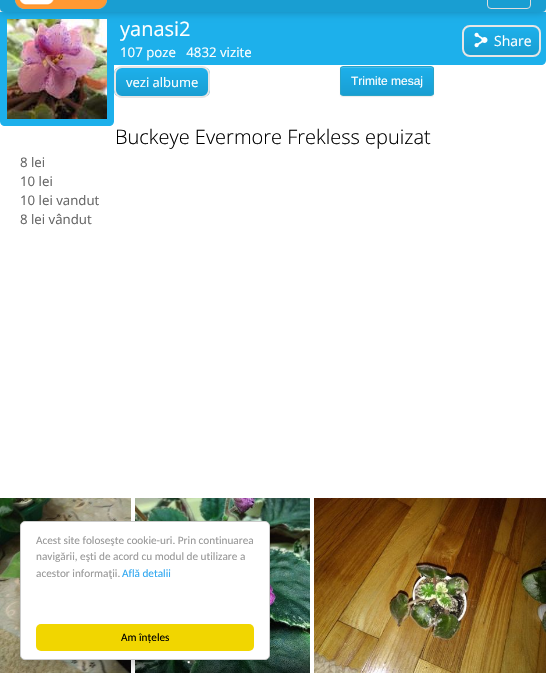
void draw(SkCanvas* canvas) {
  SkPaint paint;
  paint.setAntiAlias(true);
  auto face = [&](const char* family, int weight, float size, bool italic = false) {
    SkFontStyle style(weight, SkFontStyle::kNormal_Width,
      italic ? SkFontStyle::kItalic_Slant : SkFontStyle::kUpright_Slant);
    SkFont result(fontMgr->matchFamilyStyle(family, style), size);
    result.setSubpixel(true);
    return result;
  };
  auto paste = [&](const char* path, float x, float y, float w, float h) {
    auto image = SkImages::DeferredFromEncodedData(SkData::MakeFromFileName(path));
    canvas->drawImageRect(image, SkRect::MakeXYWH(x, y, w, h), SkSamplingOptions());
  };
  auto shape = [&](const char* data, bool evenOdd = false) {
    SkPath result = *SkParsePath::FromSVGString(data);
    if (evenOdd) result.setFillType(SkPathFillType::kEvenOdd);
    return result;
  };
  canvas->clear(0xffffffff);
  paint.setColor(0xff1db0eb);
  canvas->drawPath(shape("M0 12H114V121C114 124 112 126 109 126H5C2 126 0 124 0 121Z"), paint);
  paste("img/2.png", 7, 19, 100, 100);
  canvas->drawPath(shape("M107 12H546V60C546 63 544 65 541 65H107Z"), paint);
  canvas->save();
  canvas->clipPath(shape("M470 25H533C537.5 25 541 28.5 541 33V49C541 53.5 537.5 57 533 57H470C465.5 57 462 53.5 462 49V33C462 28.5 465.5 25 470 25Z"), true);
  {
    const SkColor colors[] = {0xff1db0eb, 0xff199ed2};
    const float stops[] = {0, 1};
    const SkPoint ends[] = {{502, 27}, {502, 55}};
    paint.setShader(SkGradientShader::MakeLinear(ends, colors, stops, 2, SkTileMode::kClamp));
    paint.setAlpha(255);
  }
  canvas->drawRect(SkRect::MakeXYWH(462, 27, 79, 28), paint);
  canvas->restore();
  paint.setStroke(true);
  paint.setStrokeWidth(2);
  paint.setShader(nullptr);
  paint.setColor(0xffe6e6e6);
  canvas->drawRoundRect(SkRect::MakeXYWH(463, 26, 77, 30), 7, 7, paint);
  paint.setStroke(false);
  paint.setColor(0x40000000);
  paint.setMaskFilter(SkMaskFilter::MakeBlur(kNormal_SkBlurStyle, 5));
  canvas->drawRoundRect(SkRect::MakeXYWH(0, -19, 546, 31), 4, 4, paint);
  paint.setMaskFilter(nullptr);
  paint.setColor(0xff199ed2);
  canvas->drawRoundRect(SkRect::MakeXYWH(0, -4, 546, 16), 4, 4, paint);
  paste("img/1.png", 15, 0, 92, 9);
  paint.setStroke(true);
  paint.setStrokeWidth(1);
  paint.setColor(0xffdddddd);
  canvas->drawRoundRect(SkRect::MakeXYWH(487.5f, -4.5f, 43, 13), 3.5f, 3.5f, paint);
  paste("img/3.png", 474, 32, 14, 16);
  canvas->save();
  canvas->clipPath(shape("M122 66H202C206.5 66 210 69.5 210 74V90C210 94.5 206.5 98 202 98H122C117.5 98 114 94.5 114 90V74C114 69.5 117.5 66 122 66Z"), true);
  paint.setStroke(false);
  {
    const SkColor colors[] = {0xff1db0eb, 0xff199ed2};
    const float stops[] = {0, 1};
    const SkPoint ends[] = {{162, 68}, {162, 96}};
    paint.setShader(SkGradientShader::MakeLinear(ends, colors, stops, 2, SkTileMode::kClamp));
    paint.setAlpha(255);
  }
  canvas->drawRect(SkRect::MakeXYWH(114, 68, 96, 28), paint);
  canvas->restore();
  paint.setStroke(true);
  paint.setStrokeWidth(2);
  paint.setShader(nullptr);
  paint.setColor(0xffe6e6e6);
  canvas->drawRoundRect(SkRect::MakeXYWH(115, 67, 94, 30), 7, 7, paint);
  paint.setStroke(false);
  paint.setColor(0x12000000);
  paint.setMaskFilter(SkMaskFilter::MakeBlur(kNormal_SkBlurStyle, 0.5f));
  canvas->drawRoundRect(SkRect::MakeXYWH(340, 67, 94, 30), 3, 3, paint);
  paint.setMaskFilter(nullptr);
  canvas->save();
  canvas->clipPath(shape("M343 66H431C432.5 66 434 67.5 434 69V93C434 94.5 432.5 96 431 96H343C341.5 96 340 94.5 340 93V69C340 67.5 341.5 66 343 66Z"), true);
  {
    const SkColor colors[] = {0xff1db0eb, 0xff199ed2};
    const float stops[] = {0, 1};
    const SkPoint ends[] = {{387, 67}, {387, 95}};
    paint.setShader(SkGradientShader::MakeLinear(ends, colors, stops, 2, SkTileMode::kClamp));
    paint.setAlpha(255);
  }
  canvas->drawRect(SkRect::MakeXYWH(340, 67, 94, 28), paint);
  canvas->restore();
  paint.setShader(nullptr);
  paint.setColor(0x26ffffff);
  canvas->drawPath(shape("M343 68H431C432 68 433 69 433 70C433 69 433 67 431 67H358C355 67 341 63 341 70C341 69 342 68 343 68Z"), paint);
  paint.setStroke(true);
  paint.setStrokeWidth(1);
  paint.setColor(0xff28a4c9);
  canvas->drawRoundRect(SkRect::MakeXYWH(340.5f, 66.5f, 93, 29), 2.5f, 2.5f, paint);
  paste("img/4.png", 0, 498, 131, 175);
  paste("img/5.png", 135, 498, 175, 175);
  paste("img/6.png", 314, 498, 232, 175);
  paint.setStroke(false);
  paint.setColor(0x33000000);
  paint.setMaskFilter(SkMaskFilter::MakeBlur(kNormal_SkBlurStyle, 5));
  canvas->drawRoundRect(SkRect::MakeXYWH(20, 526, 250, 139), 5, 5, paint);
  paint.setMaskFilter(nullptr);
  paint.setColor(0xffffffff);
  canvas->drawRoundRect(SkRect::MakeXYWH(20.5f, 521.5f, 249, 138), 4.5f, 4.5f, paint);
  paint.setStroke(true);
  paint.setColor(0xffcccccc);
  canvas->drawRoundRect(SkRect::MakeXYWH(20.5f, 521.5f, 249, 138), 4.5f, 4.5f, paint);
  paint.setStroke(false);
  paint.setColor(0xfff1d600);
  canvas->drawRoundRect(SkRect::MakeXYWH(36, 624, 218, 27), 5, 5, paint);
  auto f0 = face("Open Sans", 400, 20);
  paint.setColor(0xffffffff);
  canvas->drawString("yanasi2", 120, 36, f0, paint);
  auto f1 = face("Open Sans", 400, 14);
  canvas->drawString("Share", 494, 46, f1, paint);
  auto f2 = face("Open Sans", 400, 13.25f);
  canvas->drawString("107 poze   4832 vizite", 120, 57, f2, paint);
  auto f3 = face("Open Sans", 400, 13);
  canvas->drawString("vezi albume", 126, 87, f3, paint);
  auto f4 = face("Liberation Sans", 400, 12);
  canvas->drawString("Trimite mesaj", 351, 85, f4, paint);
  auto f5 = face("Open Sans", 300, 20);
  paint.setColor(0xff000000);
  canvas->drawString("Buckeye Evermore Frekless epuizat", 115, 144, f5, paint);
  paint.setColor(0xff666666);
  {
    const struct { const char* s; float x, y; } items[] = {
      {"8 lei", 20, 167},
      {"10 lei", 20, 186},
      {"10 lei vandut", 20, 205},
      {"8 lei vândut", 20, 224},
    };
    for (auto [s, x, y] : items) {
      canvas->drawString(s, x, y, f2, paint);
    }
  }
  auto f6 = face("Liberation Sans", 700, 12);
  paint.setColor(0xffffffff);
  canvas->drawString(".", 187, 663, f6, paint);
  auto f7 = face("Carlito", 400, 11.25f);
  paint.setColor(0xff999999);
  {
    const struct { const char* s; float x, y; } items[] = {
      {"Acest site foloseşte cookie-uri. Prin continuarea", 36, 544},
      {"navigării, eşti de acord cu modul de utilizare a", 36, 560},
      {"acestor informaţii.", 36, 577},
    };
    for (auto [s, x, y] : items) {
      canvas->drawString(s, x, y, f7, paint);
    }
  }
  paint.setColor(0xff31a8f0);
  canvas->drawString("Află detalii", 122, 577, f7, paint);
  paint.setColor(0xff000000);
  canvas->drawString("Am înțeles", 121, 641, f7, paint);
}
